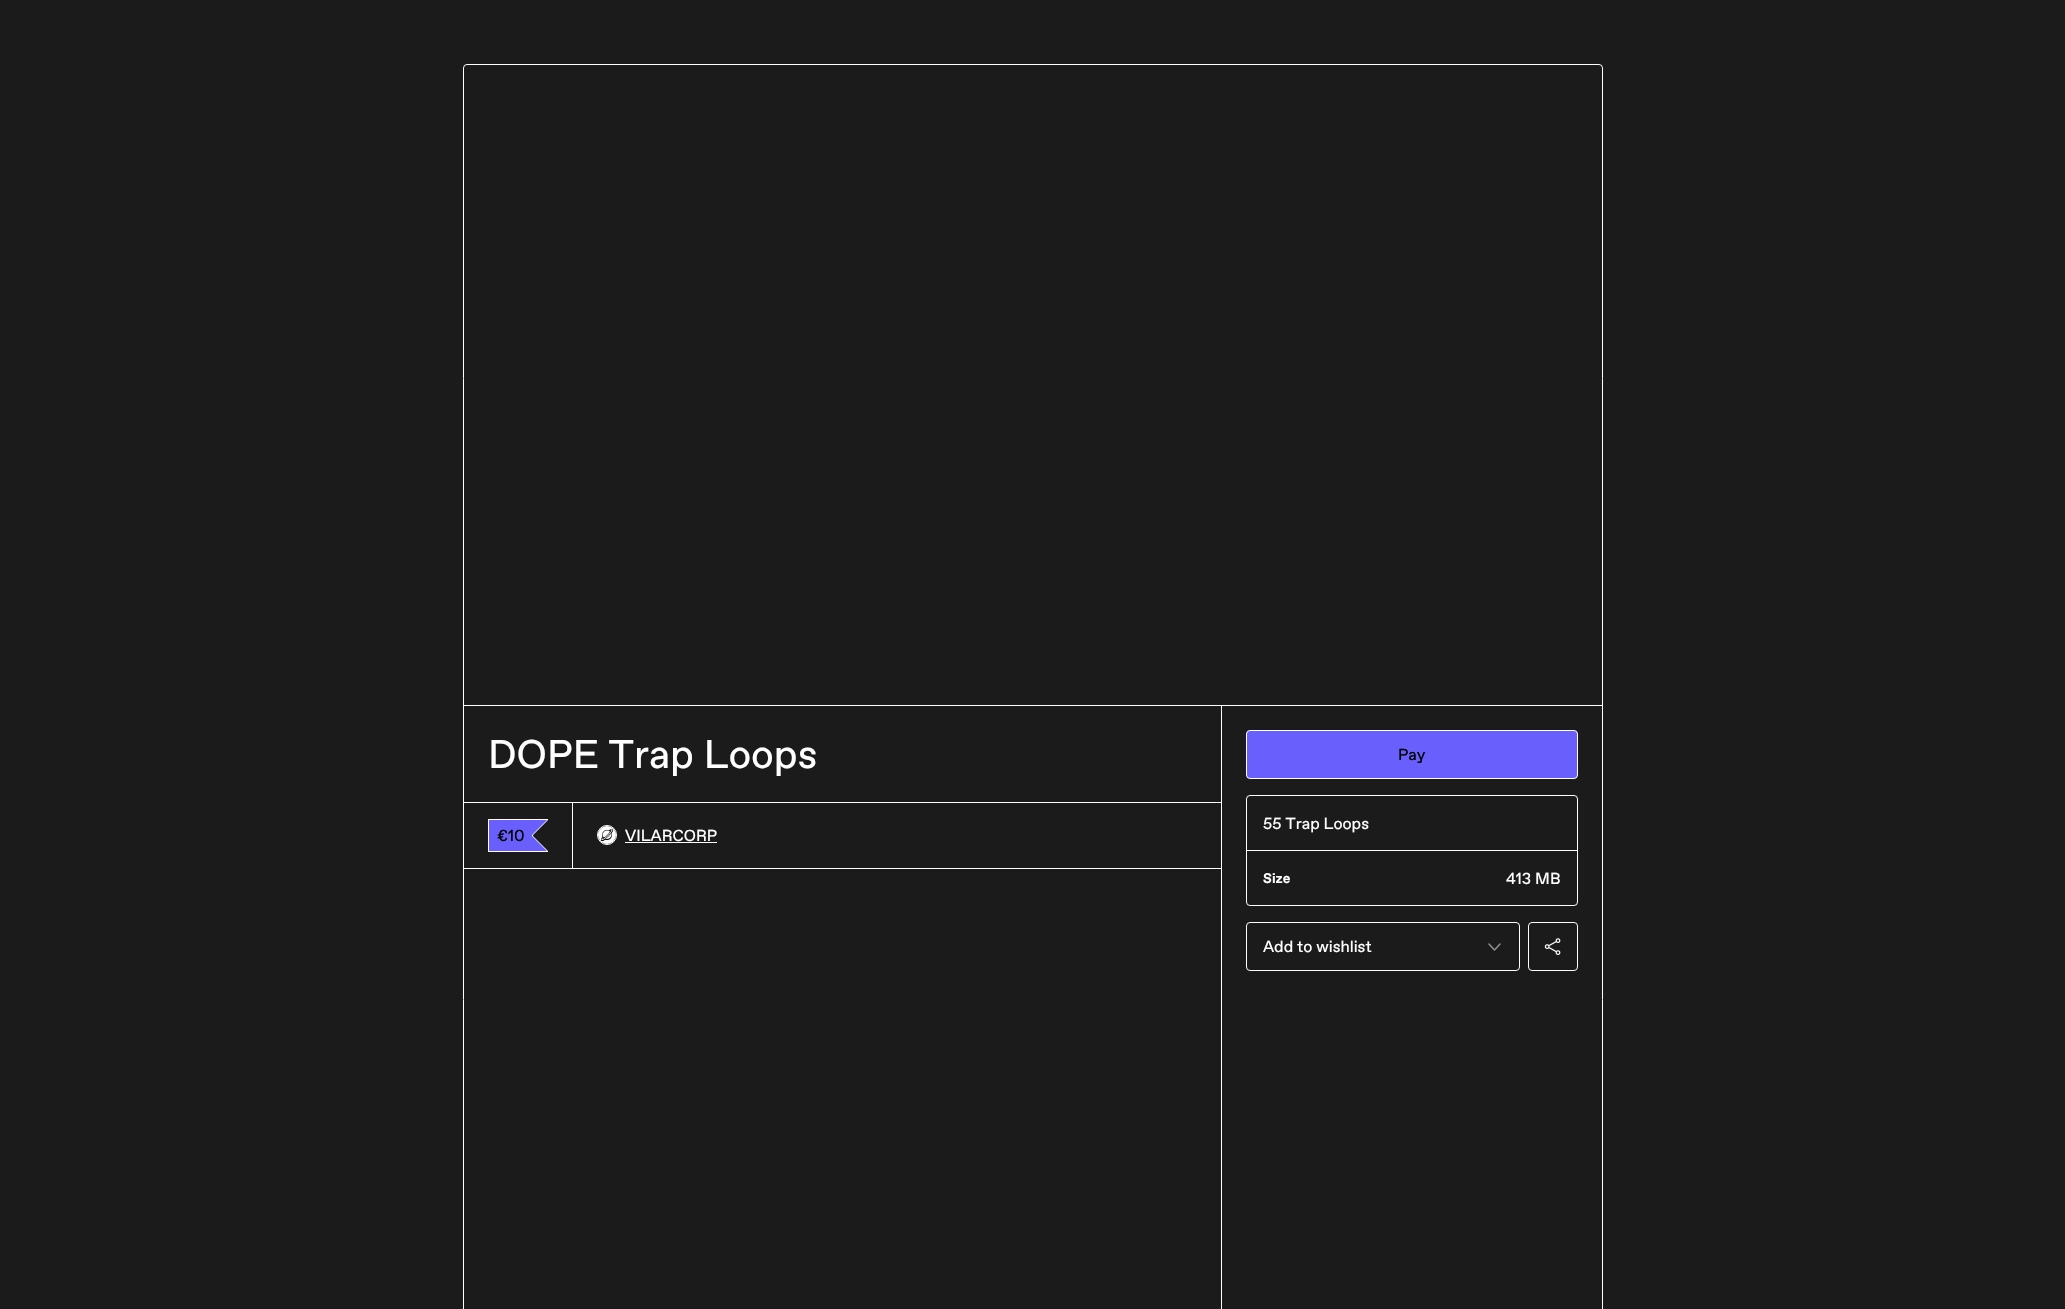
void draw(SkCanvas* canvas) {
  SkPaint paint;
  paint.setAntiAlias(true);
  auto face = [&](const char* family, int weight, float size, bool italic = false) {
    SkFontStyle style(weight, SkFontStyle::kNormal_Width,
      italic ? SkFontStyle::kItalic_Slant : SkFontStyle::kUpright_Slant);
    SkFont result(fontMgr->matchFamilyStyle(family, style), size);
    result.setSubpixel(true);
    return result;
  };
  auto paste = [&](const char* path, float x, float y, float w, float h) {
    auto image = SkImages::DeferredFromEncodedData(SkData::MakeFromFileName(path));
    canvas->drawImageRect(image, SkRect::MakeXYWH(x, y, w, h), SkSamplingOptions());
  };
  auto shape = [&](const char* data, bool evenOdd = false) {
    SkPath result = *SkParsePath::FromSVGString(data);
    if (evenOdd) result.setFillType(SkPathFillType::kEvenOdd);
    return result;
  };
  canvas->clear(0xff1b1b1b);
  paint.setStroke(true);
  paint.setStrokeWidth(1);
  paint.setColor(0xffffffff);
  canvas->drawRoundRect(SkRect::MakeXYWH(463.5f, 64.5f, 1139, 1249), 3.5f, 3.5f, paint);
  paint.setStroke(false);
  {
    const struct { float x, y, w, h; SkColor color; } items[] = {
      {464, 705, 1138, 1, 0xffffffff},
      {1221, 706, 1, 603, 0xffffffff},
      {573, 802, 648, 1, 0xffffffff},
    };
    for (auto [x, y, w, h, color] : items) {
      paint.setColor(color);
      canvas->drawRect(SkRect::MakeXYWH(x, y, w, h), paint);
    }
  }
  paint.setStroke(true);
  canvas->drawRect(SkRect::MakeXYWH(463.5f, 802.5f, 109, 66), paint);
  paint.setStroke(false);
  {
    const struct { float x, y, w, h; SkColor color; } items[] = {
      {488, 819, 60, 1, 0xffffffff},
      {488, 851, 60, 1, 0xffffffff},
      {488, 819, 1, 33, 0xffffffff},
      {489, 820, 43, 31, 0xff695ffc},
    };
    for (auto [x, y, w, h, color] : items) {
      paint.setColor(color);
      canvas->drawRect(SkRect::MakeXYWH(x, y, w, h), paint);
    }
  }
  paint.setColor(0xffffffff);
  canvas->drawPath(shape("M532 820H548L533 835ZM548 851H532L533 836Z"), paint);
  canvas->drawRect(SkRect::MakeXYWH(532, 834, 1, 3), paint);
  paint.setColor(0xff695ffc);
  canvas->drawPath(shape("M531 820H547L532 835ZM547 851H531L532 836Z"), paint);
  paint.setStroke(true);
  paint.setColor(0xffffffff);
  canvas->drawCircle(607, 835, 9.5f, paint);
  paste("img/1.png", 598, 826, 18, 18);
  paint.setStroke(false);
  canvas->drawRect(SkRect::MakeXYWH(625, 842, 92, 1), paint);
  canvas->drawRect(SkRect::MakeXYWH(573, 868, 648, 1), paint);
  paint.setColor(0xff695ffc);
  canvas->drawRoundRect(SkRect::MakeXYWH(1246.5f, 730.5f, 331, 48), 3.5f, 3.5f, paint);
  paint.setStroke(true);
  paint.setColor(0xffffffff);
  canvas->drawRoundRect(SkRect::MakeXYWH(1246.5f, 730.5f, 331, 48), 3.5f, 3.5f, paint);
  canvas->drawRoundRect(SkRect::MakeXYWH(1246.5f, 795.5f, 331, 110), 3.5f, 3.5f, paint);
  paint.setStroke(false);
  canvas->drawRect(SkRect::MakeXYWH(1247, 850, 330, 1), paint);
  paint.setStroke(true);
  canvas->drawRoundRect(SkRect::MakeXYWH(1246.5f, 922.5f, 273, 48), 3.5f, 3.5f, paint);
  paint.setStrokeWidth(1.6f);
  paint.setStrokeCap(SkPaint::kRound_Cap);
  paint.setStrokeJoin(SkPaint::kRound_Join);
  paint.setColor(0xff8d8d8d);
  canvas->drawPath(shape("M1500 944L1494.5 950L1489 944"), paint);
  paint.setStrokeWidth(1);
  paint.setStrokeCap(SkPaint::kButt_Cap);
  paint.setStrokeJoin(SkPaint::kMiter_Join);
  paint.setColor(0xffffffff);
  canvas->drawRoundRect(SkRect::MakeXYWH(1528.5f, 922.5f, 49, 48), 3.5f, 3.5f, paint);
  paste("img/2.png", 1544, 938, 17, 17);
  auto f0 = face("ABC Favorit", 400, 40);
  paint.setStroke(false);
  canvas->drawString("DOPE Trap Loops", 488, 768, f0, paint);
  auto f1 = face("ABC Favorit", 400, 16);
  paint.setColor(0xff000000);
  canvas->drawString("€10", 497, 841, f1, paint);
  paint.setColor(0xffffffff);
  canvas->drawString("VILARCORP", 625, 841, f1, paint);
  paint.setColor(0xff000000);
  canvas->drawString("Pay", 1398, 760, f1, paint);
  paint.setColor(0xffffffff);
  canvas->drawString("55 Trap Loops", 1263, 829, f1, paint);
  auto f2 = face("ABC Favorit", 700, 14);
  canvas->drawString("Size", 1263, 883, f2, paint);
  canvas->drawString("413 MB", 1506, 884, f1, paint);
  canvas->drawString("Add to wishlist", 1263, 952, f1, paint);
}
